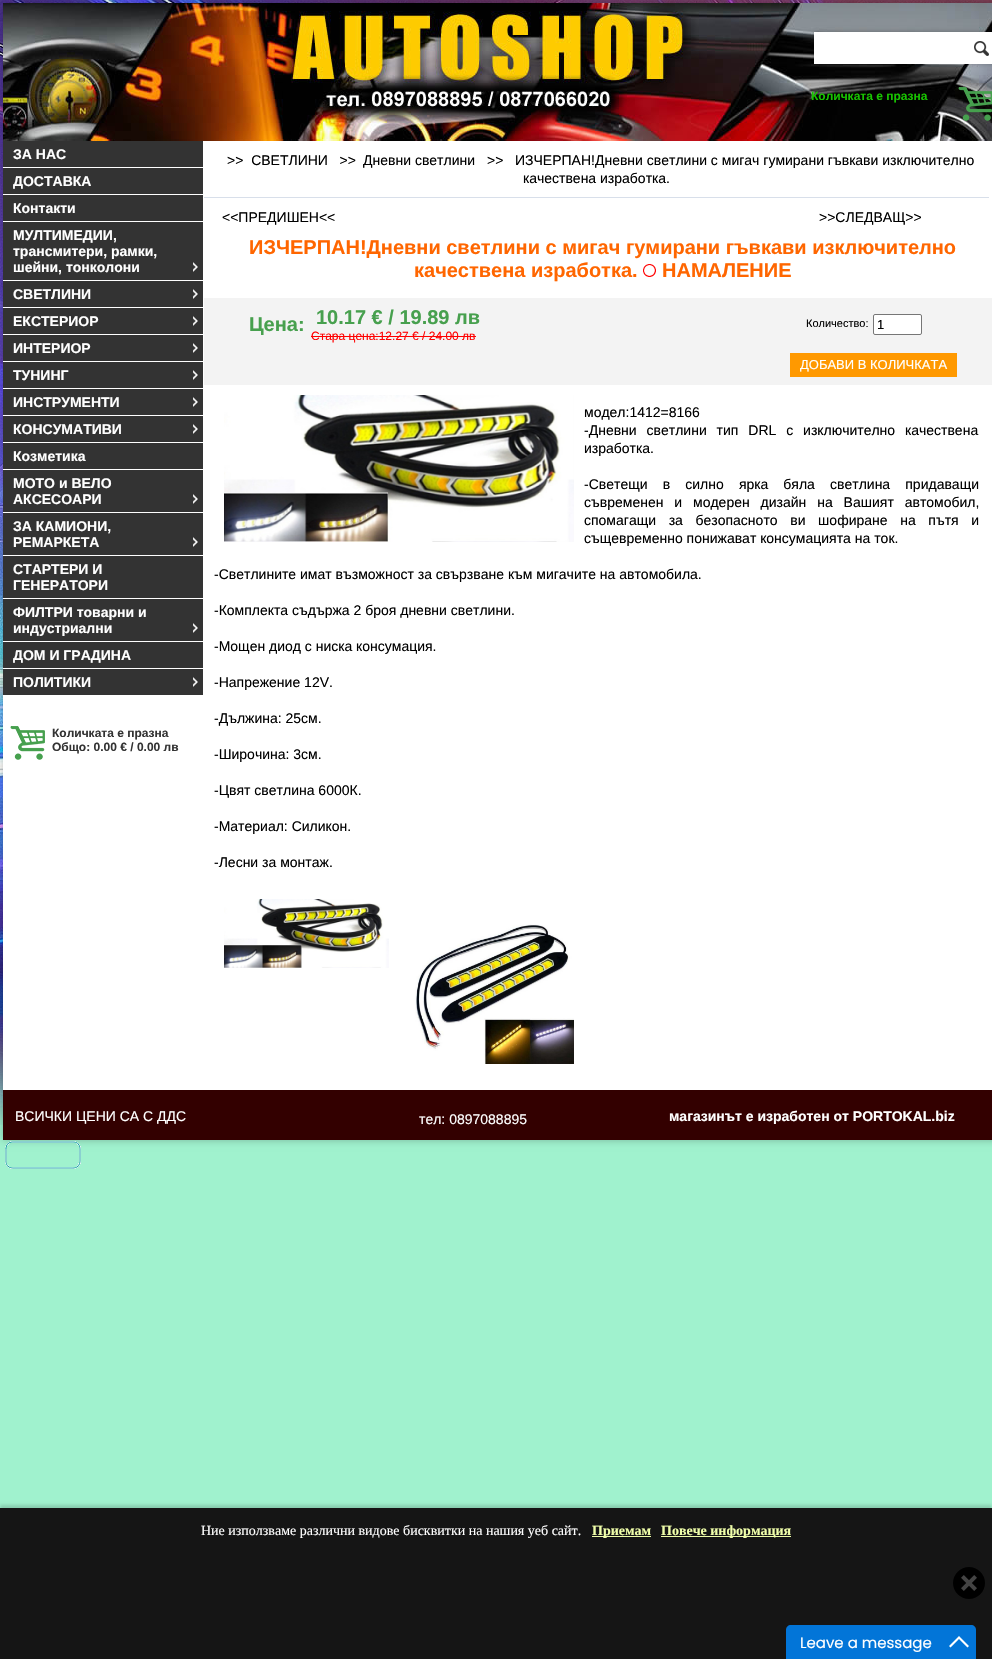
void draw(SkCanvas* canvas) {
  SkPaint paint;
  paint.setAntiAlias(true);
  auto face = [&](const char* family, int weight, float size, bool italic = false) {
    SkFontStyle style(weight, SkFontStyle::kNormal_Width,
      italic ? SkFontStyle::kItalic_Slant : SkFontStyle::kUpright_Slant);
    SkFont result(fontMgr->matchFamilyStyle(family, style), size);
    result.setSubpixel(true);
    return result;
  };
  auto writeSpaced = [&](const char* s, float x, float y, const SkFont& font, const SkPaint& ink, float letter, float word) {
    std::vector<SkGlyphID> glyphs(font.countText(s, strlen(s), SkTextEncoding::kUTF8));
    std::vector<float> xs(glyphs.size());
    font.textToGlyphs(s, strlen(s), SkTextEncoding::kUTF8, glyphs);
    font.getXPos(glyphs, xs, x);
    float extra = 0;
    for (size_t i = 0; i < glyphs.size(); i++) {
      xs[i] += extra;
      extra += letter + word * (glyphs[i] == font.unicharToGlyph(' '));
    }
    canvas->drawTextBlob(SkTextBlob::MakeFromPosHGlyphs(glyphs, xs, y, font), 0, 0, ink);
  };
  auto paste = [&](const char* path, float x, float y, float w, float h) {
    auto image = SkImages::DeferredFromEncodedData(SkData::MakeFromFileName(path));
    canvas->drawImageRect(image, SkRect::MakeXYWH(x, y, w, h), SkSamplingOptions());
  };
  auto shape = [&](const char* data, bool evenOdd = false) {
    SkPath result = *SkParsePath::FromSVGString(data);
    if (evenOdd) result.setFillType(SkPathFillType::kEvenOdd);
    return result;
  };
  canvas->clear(0xffa0f2ce);
  paste("img/1.png", 0, 0, 992, 1125);
  paint.setColor(0x40000000);
  paint.setMaskFilter(SkMaskFilter::MakeBlur(kNormal_SkBlurStyle, 4));
  canvas->drawRect(SkRect::MakeXYWH(3, 3, 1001, 1137), paint);
  paint.setMaskFilter(nullptr);
  paint.setColor(0xffffffff);
  canvas->drawRect(SkRect::MakeXYWH(3, 141, 989, 949), paint);
  paste("img/2.png", 3, 3, 989, 138);
  paint.setColor(0x42000000);
  paint.setMaskFilter(SkMaskFilter::MakeBlur(kNormal_SkBlurStyle, 2.5f));
  canvas->drawRect(SkRect::MakeXYWH(814, 32, 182, 32), paint);
  paint.setMaskFilter(nullptr);
  paint.setColor(0xffffffff);
  canvas->drawRect(SkRect::MakeXYWH(814, 32, 178, 32), paint);
  paste("img/3.png", 974, 41, 15, 15);
  paste("img/4.png", 958, 87, 34, 34);
  {
    const struct { float x, y, w, h; SkColor color; } items[] = {
      {3, 141, 200, 26, 0xff333333},
      {3, 168, 200, 26, 0xff333333},
      {3, 195, 200, 26, 0xff333333},
      {3, 222, 200, 58, 0xff333333},
    };
    for (auto [x, y, w, h, color] : items) {
      paint.setColor(color);
      canvas->drawRect(SkRect::MakeXYWH(x, y, w, h), paint);
    }
  }
  paste("img/5.png", 193, 262, 5, 10);
  canvas->drawRect(SkRect::MakeXYWH(3, 281, 200, 26), paint);
  paste("img/5.png", 193, 289, 5, 10);
  canvas->drawRect(SkRect::MakeXYWH(3, 308, 200, 26), paint);
  paste("img/5.png", 193, 316, 5, 10);
  canvas->drawRect(SkRect::MakeXYWH(3, 335, 200, 26), paint);
  paste("img/5.png", 193, 343, 5, 10);
  canvas->drawRect(SkRect::MakeXYWH(3, 362, 200, 26), paint);
  paste("img/5.png", 193, 370, 5, 10);
  canvas->drawRect(SkRect::MakeXYWH(3, 389, 200, 26), paint);
  paste("img/5.png", 193, 397, 5, 10);
  canvas->drawRect(SkRect::MakeXYWH(3, 416, 200, 26), paint);
  paste("img/5.png", 193, 424, 5, 10);
  canvas->drawRect(SkRect::MakeXYWH(3, 443, 200, 26), paint);
  canvas->drawRect(SkRect::MakeXYWH(3, 470, 200, 42), paint);
  paste("img/5.png", 193, 494, 5, 10);
  canvas->drawRect(SkRect::MakeXYWH(3, 513, 200, 42), paint);
  paste("img/5.png", 193, 537, 5, 10);
  canvas->drawRect(SkRect::MakeXYWH(3, 556, 200, 42), paint);
  canvas->drawRect(SkRect::MakeXYWH(3, 599, 200, 42), paint);
  paste("img/5.png", 193, 623, 5, 10);
  canvas->drawRect(SkRect::MakeXYWH(3, 642, 200, 26), paint);
  canvas->drawRect(SkRect::MakeXYWH(3, 669, 200, 26), paint);
  paste("img/5.png", 193, 677, 5, 10);
  paste("img/6.png", 10, 726, 35, 34);
  paint.setColor(0xffd8dfea);
  canvas->drawRect(SkRect::MakeXYWH(204, 197, 785, 1), paint);
  paste("img/7.png", 643, 264, 13, 13);
  paint.setColor(0xfff3f3f3);
  canvas->drawRect(SkRect::MakeXYWH(204, 298, 788, 87), paint);
  paint.setColor(0xffff0000);
  canvas->drawRect(SkRect::MakeXYWH(311, 336, 165, 1), paint);
  paint.setColor(0xffffffff);
  canvas->drawRoundRect(SkRect::MakeXYWH(873.5f, 314.5f, 48, 20), 1.5f, 1.5f, paint);
  paint.setStroke(true);
  paint.setStrokeWidth(1);
  paint.setColor(0xff767676);
  canvas->drawRoundRect(SkRect::MakeXYWH(873.5f, 314.5f, 48, 20), 1.5f, 1.5f, paint);
  paint.setStroke(false);
  paint.setColor(0xffff9900);
  canvas->drawRect(SkRect::MakeXYWH(790, 353, 167, 24), paint);
  paste("img/8.png", 224, 395, 350, 147);
  paste("img/9.png", 224, 899, 165, 69);
  paste("img/10.png", 415, 924, 159, 140);
  paint.setColor(0xff330000);
  canvas->drawRect(SkRect::MakeXYWH(3, 1090, 989, 50), paint);
  paste("img/11.png", 5, 1141, 76, 28);
  paint.setColor(0x26000000);
  paint.setMaskFilter(SkMaskFilter::MakeBlur(kNormal_SkBlurStyle, 1.5f));
  canvas->drawRect(SkRect::MakeXYWH(0, 1505, 992, 151), paint);
  paint.setMaskFilter(nullptr);
  {
    const struct { float x, y, w, h; SkColor color; } items[] = {
      {0, 1508, 992, 151, 0xff151515},
      {592, 1536, 59, 1, 0xfff0ffaa},
      {661, 1536, 130, 1, 0xfff0ffaa},
    };
    for (auto [x, y, w, h, color] : items) {
      paint.setColor(color);
      canvas->drawRect(SkRect::MakeXYWH(x, y, w, h), paint);
    }
  }
  paint.setColor(0xff000000);
  canvas->drawCircle(969, 1583, 16, paint);
  paste("img/12.png", 961, 1575, 16, 16);
  paint.setColor(0xff0275d8);
  canvas->drawPath(shape("M791 1625H971C974 1625 976 1627 976 1630V1659H786V1630C786 1627 788 1625 791 1625Z"), paint);
  paint.setColor(0xffffffff);
  canvas->drawPath(shape("M959 1636L969 1646L967.5 1647.5L959 1639L950.5 1647.5L949 1646Z"), paint);
  auto f0 = face("Liberation Sans", 700, 12);
  paint.setColor(0xff18c400);
  canvas->drawString("Количката е празна", 811, 100, f0, paint);
  auto f1 = face("Liberation Sans", 700, 14);
  paint.setColor(0xffffffff);
  {
    const struct { const char* s; float x, y; } items[] = {
      {"ЗА НАС", 13, 159},
      {"ДОСТАВКА", 13, 186},
      {"Контакти", 13, 213},
      {"МУЛТИМЕДИИ,", 13, 240},
      {"трансмитери, рамки,", 13, 256},
      {"шейни, тонколони", 13, 272},
      {"СВЕТЛИНИ", 13, 299},
      {"ЕКСТЕРИОР", 13, 326},
      {"ИНТЕРИОР", 13, 353},
      {"ТУНИНГ", 13, 380},
      {"ИНСТРУМЕНТИ", 13, 407},
      {"КОНСУМАТИВИ", 13, 434},
      {"Козметика", 13, 461},
      {"МОТО и ВЕЛО", 13, 488},
      {"АКСЕСОАРИ", 13, 504},
      {"ЗА КАМИОНИ,", 13, 531},
      {"РЕМАРКЕТА", 13, 547},
      {"СТАРТЕРИ И", 13, 574},
      {"ГЕНЕРАТОРИ", 13, 590},
      {"ФИЛТРИ товарни и", 13, 617},
      {"индустриални", 13, 633},
      {"ДОМ И ГРАДИНА", 13, 660},
      {"ПОЛИТИКИ", 13, 687},
    };
    for (auto [s, x, y] : items) {
      canvas->drawString(s, x, y, f1, paint);
    }
  }
  paint.setColor(0xff333333);
  canvas->drawString("Количката е празна", 52, 737, f0, paint);
  canvas->drawString("Общо: 0.00 € / 0.00 лв", 52, 751, f0, paint);
  auto f2 = face("Liberation Sans", 400, 14);
  paint.setColor(0xff000000);
  {
    const struct { const char* s; float x, y; } items[] = {
      {">>  СВЕТЛИНИ   >>", 227, 165},
      {"Дневни светлини", 363, 165},
      {">>", 487, 165},
      {"ИЗЧЕРПАН!Дневни светлини с мигач гумирани гъвкави изключително", 515, 165},
      {"качествена изработка.", 523, 183},
      {"<<ПРЕДИШЕН<<", 222, 222},
      {">>СЛЕДВАЩ>>", 819, 222},
    };
    for (auto [s, x, y] : items) {
      canvas->drawString(s, x, y, f2, paint);
    }
  }
  auto f3 = face("Liberation Sans", 700, 20);
  paint.setColor(0xffff6600);
  {
    const struct { const char* s; float x, y; } items[] = {
      {"ИЗЧЕРПАН!Дневни светлини с мигач гумирани гъвкави изключително", 249, 254},
      {"качествена изработка.", 414, 277},
      {"НАМАЛЕНИЕ", 662, 277},
    };
    for (auto [s, x, y] : items) {
      canvas->drawString(s, x, y, f3, paint);
    }
  }
  paint.setColor(0xff47a04e);
  canvas->drawString("Цена:", 249, 331, f3, paint);
  canvas->drawString("10.17 € / 19.89 лв", 316, 324, f3, paint);
  auto f4 = face("Liberation Sans", 400, 12);
  paint.setColor(0xffff0000);
  canvas->drawString("Стара цена:12.27 € / 24.00 лв", 311, 340, f4, paint);
  auto f5 = face("Liberation Sans", 400, 11);
  paint.setColor(0xff000000);
  canvas->drawString("Количество:", 806, 327, f5, paint);
  auto f6 = face("Liberation Sans", 400, 13);
  canvas->drawString("1", 877, 329, f6, paint);
  paint.setColor(0xffffffff);
  canvas->drawString("ДОБАВИ В КОЛИЧКАТА", 800, 369, f6, paint);
  paint.setColor(0xff000000);
  canvas->drawString("модел:1412=8166", 584, 417, f2, paint);
  writeSpaced("-Дневни светлини тип DRL с изключително качествена", 584, 435, f2, paint, 0, 6);
  canvas->drawString("изработка.", 584, 453, f2, paint);
  writeSpaced("-Светещи в силно ярка бяла светлина придаващи", 584, 489, f2, paint, 0, 11.25f);
  writeSpaced("съвременен и модерен дизайн на Вашият автомобил,", 584, 507, f2, paint, 0, 7);
  writeSpaced("спомагащи за безопасното ви шофиране на пътя и", 584, 525, f2, paint, 0, 8.75f);
  {
    const struct { const char* s; float x, y; } items[] = {
      {"същевременно понижават консумацията на ток.", 584, 543},
      {"-Светлините имат възможност за свързване към мигачите на автомобила.", 214, 579},
      {"-Комплекта съдържа 2 броя дневни светлини.", 214, 615},
      {"-Мощен диод с ниска консумация.", 214, 651},
      {"-Напрежение 12V.", 214, 687},
      {"-Дължина: 25см.", 214, 723},
      {"-Широчина: 3см.", 214, 759},
      {"-Цвят светлина 6000К.", 214, 795},
      {"-Материал: Силикон.", 214, 831},
      {"-Лесни за монтаж.", 214, 867},
    };
    for (auto [s, x, y] : items) {
      canvas->drawString(s, x, y, f2, paint);
    }
  }
  paint.setColor(0xffffffff);
  canvas->drawString("ВСИЧКИ ЦЕНИ СА С ДДС", 15, 1121, f2, paint);
  canvas->drawString("тел: 0897088895", 419, 1124, f2, paint);
  canvas->drawString("магазинът е изработен от PORTOKAL.biz", 669, 1121, f1, paint);
  auto f7 = face("Liberation Serif", 400, 14);
  canvas->drawString("Ние използваме различни видове бисквитки на нашия уеб сайт.", 201, 1535, f7, paint);
  auto f8 = face("Liberation Serif", 700, 14);
  paint.setColor(0xfff0ffaa);
  canvas->drawString("Приемам", 592, 1535, f8, paint);
  canvas->drawString("Повече информация", 661, 1535, f8, paint);
  auto f9 = face("Poppins", 400, 15);
  paint.setColor(0xffffffff);
  canvas->drawString("Leave a message", 800, 1648, f9, paint);
}
